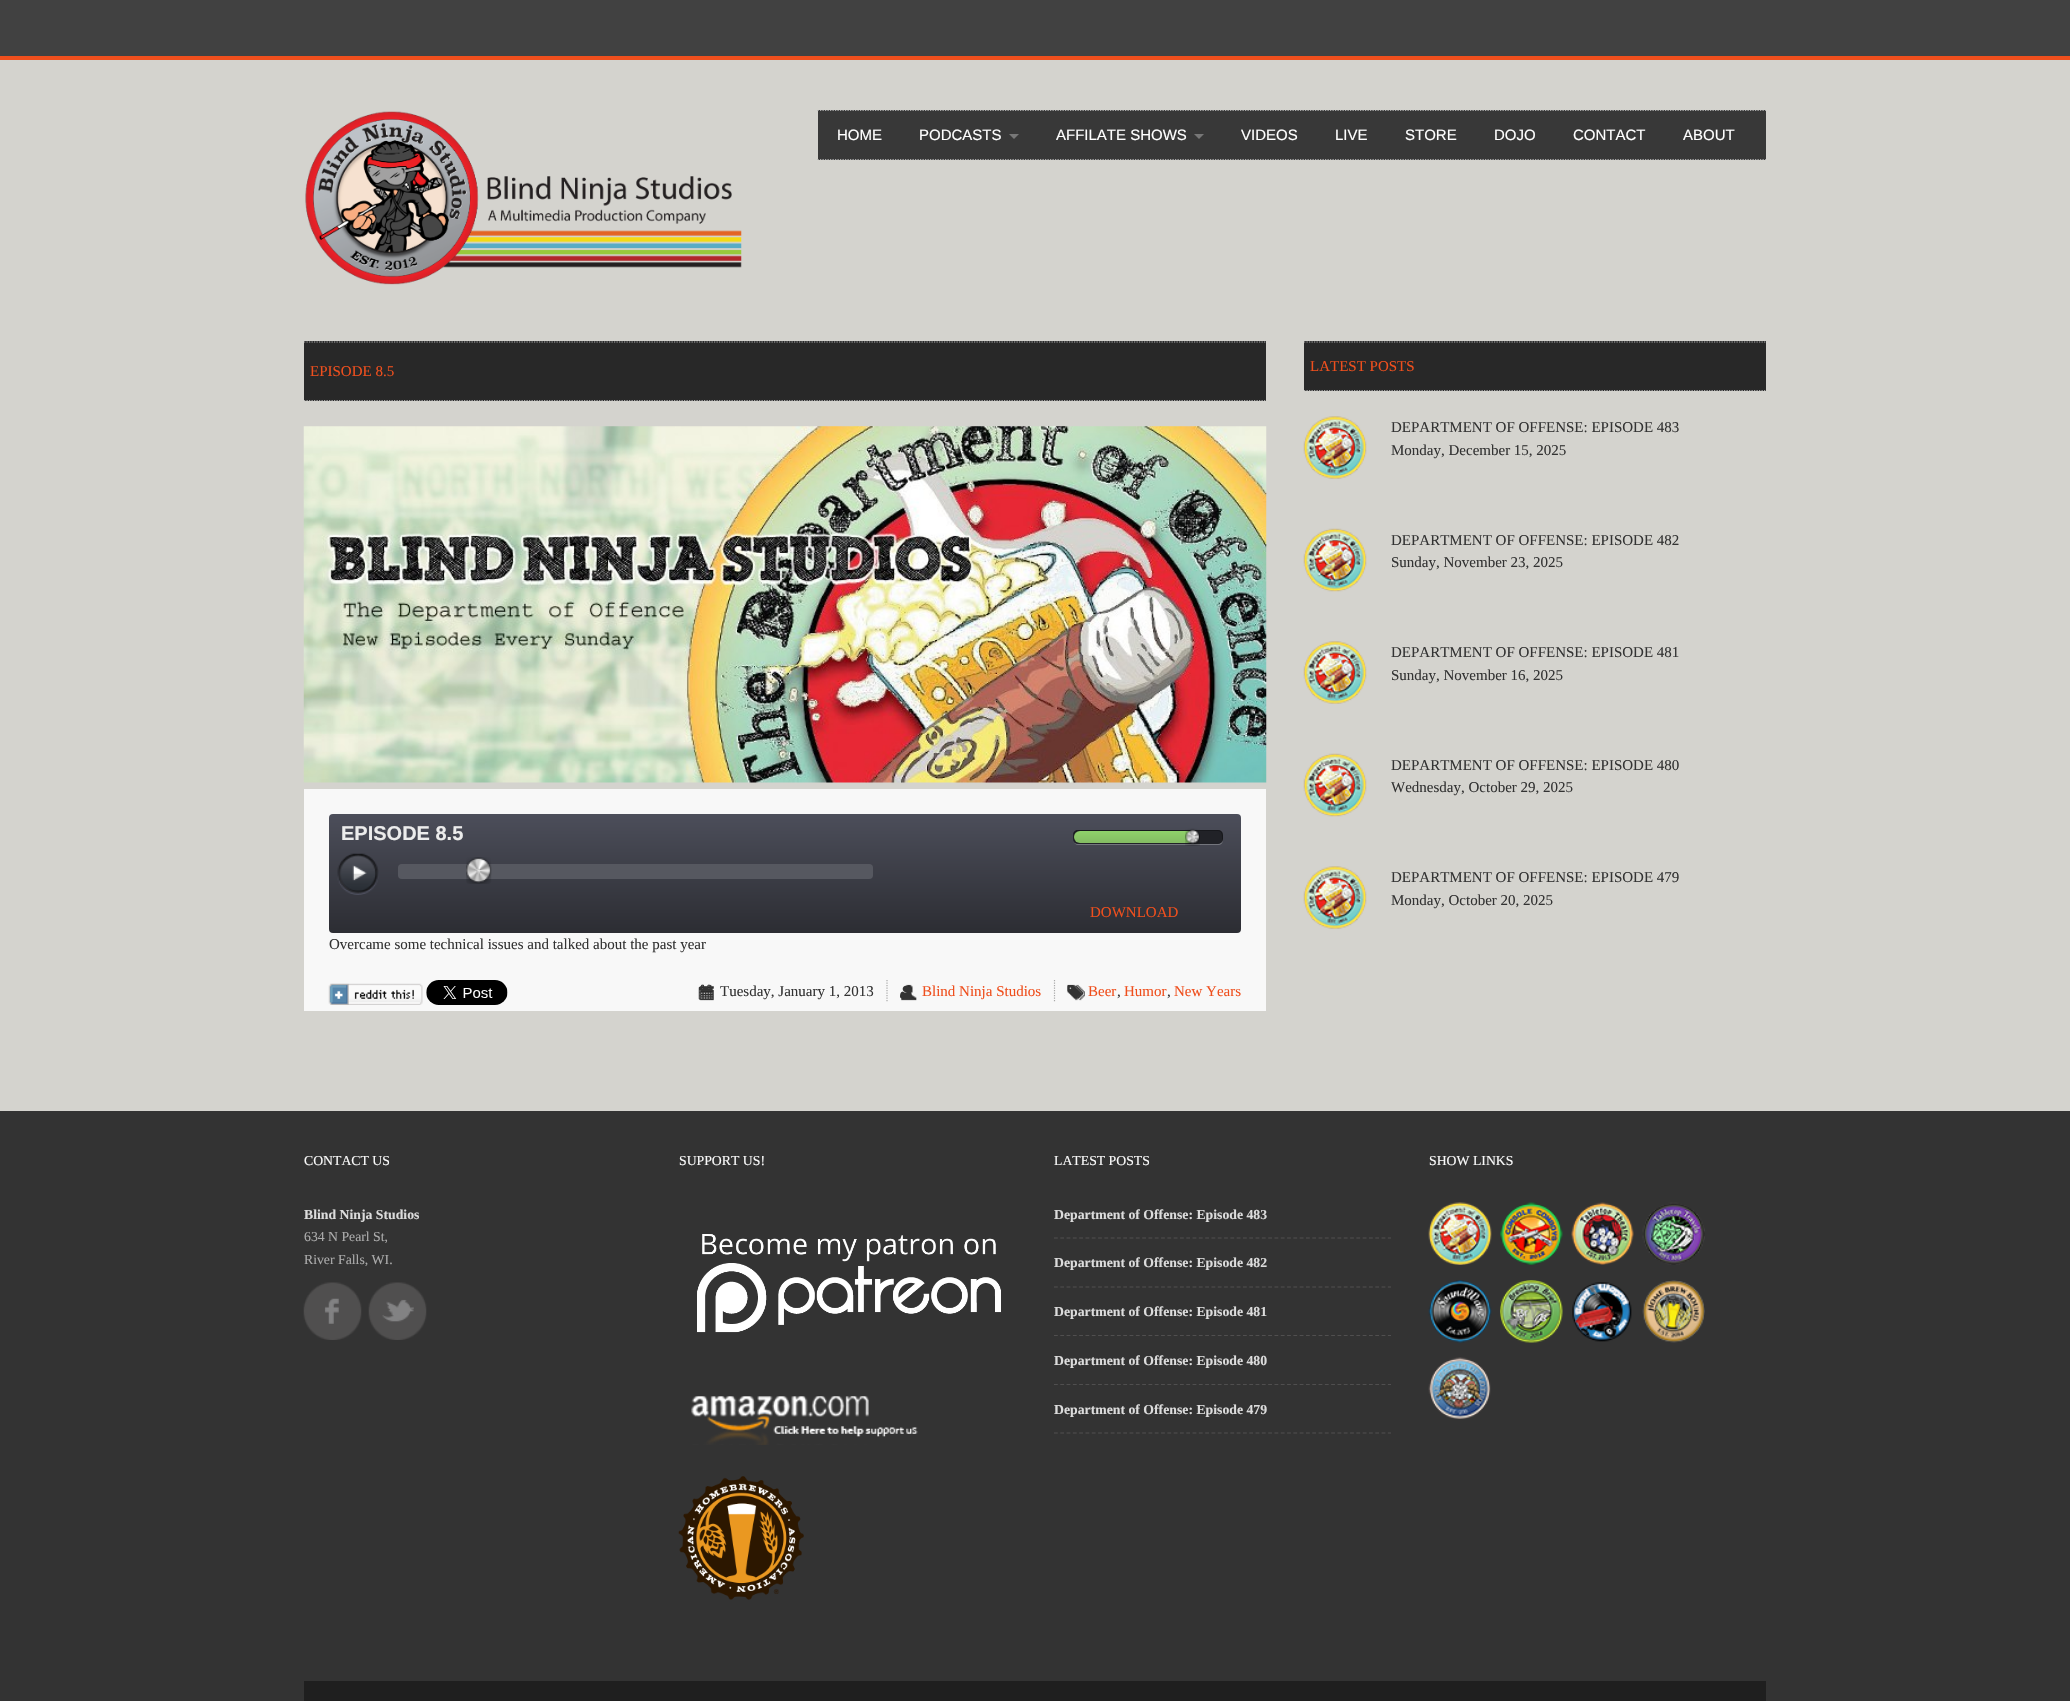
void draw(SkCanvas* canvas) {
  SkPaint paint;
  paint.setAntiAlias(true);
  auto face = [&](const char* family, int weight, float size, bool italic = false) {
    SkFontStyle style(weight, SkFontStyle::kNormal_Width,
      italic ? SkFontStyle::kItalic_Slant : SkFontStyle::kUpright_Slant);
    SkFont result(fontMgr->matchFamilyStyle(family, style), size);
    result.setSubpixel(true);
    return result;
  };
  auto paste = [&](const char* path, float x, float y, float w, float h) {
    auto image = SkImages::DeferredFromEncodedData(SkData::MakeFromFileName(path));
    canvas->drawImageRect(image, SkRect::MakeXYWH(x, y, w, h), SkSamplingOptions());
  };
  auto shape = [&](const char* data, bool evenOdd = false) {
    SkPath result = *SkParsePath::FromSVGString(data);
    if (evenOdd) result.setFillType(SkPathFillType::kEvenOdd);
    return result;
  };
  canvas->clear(0xffd4d3ce);
  paint.setColor(0xff414141);
  canvas->drawRect(SkRect::MakeXYWH(0, 0, 2070, 56), paint);
  paint.setColor(0xffef4f1d);
  canvas->drawRect(SkRect::MakeXYWH(0, 56, 2070, 4), paint);
  paste("img/1.png", 305, 111, 437, 174);
  paint.setColor(0xff383838);
  canvas->drawRect(SkRect::MakeXYWH(818, 110, 948, 50), paint);
  paint.setStroke(true);
  paint.setStrokeWidth(1.2f);
  paint.setColor(0xffa9a9a9);
  paint.setPathEffect(SkDashPathEffect::Make({{1.25f, 1.25f}}, 0));
  canvas->drawPath(shape("M817.5 110.5H1766"), paint);
  paint.setPathEffect(nullptr);
  paint.setPathEffect(SkDashPathEffect::Make({{1.25f, 1.25f}}, 0));
  canvas->drawPath(shape("M817.5 159.5H1766"), paint);
  paint.setPathEffect(nullptr);
  paint.setStroke(false);
  paint.setColor(0xff777777);
  canvas->drawPath(shape("M1009 134H1019L1014 139Z"), paint);
  canvas->drawPath(shape("M1194 134H1204L1199 139Z"), paint);
  paint.setColor(0xff282828);
  canvas->drawRect(SkRect::MakeXYWH(304, 341, 962, 60), paint);
  paint.setStroke(true);
  paint.setColor(0xffa9a9a9);
  paint.setPathEffect(SkDashPathEffect::Make({{1.25f, 1.25f}}, 0));
  canvas->drawPath(shape("M304 342H1266"), paint);
  paint.setPathEffect(nullptr);
  paint.setPathEffect(SkDashPathEffect::Make({{1.25f, 1.25f}}, 0));
  canvas->drawPath(shape("M304 400.5H1266"), paint);
  paint.setPathEffect(nullptr);
  paste("img/2.png", 303, 426, 964, 357);
  paint.setStroke(false);
  paint.setColor(0xfff8f8f8);
  canvas->drawRect(SkRect::MakeXYWH(304, 789, 962, 222), paint);
  {
    const SkColor colors[] = {0xff4c4e5a, 0xff2c2d33};
    const float stops[] = {0, 1};
    const SkPoint ends[] = {{785, 814}, {785, 933}};
    paint.setShader(SkGradientShader::MakeLinear(ends, colors, stops, 2, SkTileMode::kClamp));
    paint.setAlpha(255);
  }
  canvas->drawRoundRect(SkRect::MakeXYWH(329, 814, 912, 119), 4, 4, paint);
  paint.setShader(nullptr);
  paint.setColor(0x40ffffff);
  canvas->drawPath(shape("M1073 841C1074 843 1076 845 1078 845H1218C1221 845 1223 843 1223 840V836L1222 833V839C1222 842 1220 844 1218 844H1078C1076 844 1074 843 1073 841Z"), paint);
  paint.setColor(0xff212227);
  canvas->drawRoundRect(SkRect::MakeXYWH(1073, 830, 150, 14), 5, 5, paint);
  paint.setColor(0x4d000000);
  canvas->drawPath(shape("M1078 831H1218C1222 831 1222 835 1222 838V843C1222 842 1223 840 1223 839V835C1223 832 1221 830 1218 830H1078C1075 830 1073 832 1073 835C1074 833 1075 831 1078 831Z"), paint);
  {
    const SkColor colors[] = {0xff90d26a, 0xff83bb63};
    const float stops[] = {0, 1};
    const SkPoint ends[] = {{1134, 831}, {1134, 843}};
    paint.setShader(SkGradientShader::MakeLinear(ends, colors, stops, 2, SkTileMode::kClamp));
    paint.setAlpha(255);
  }
  canvas->drawRoundRect(SkRect::MakeXYWH(1074, 831, 120, 12), 6, 6, paint);
  paste("img/3.png", 1185, 828, 15, 18);
  paste("img/4.png", 337, 853, 42, 42);
  paint.setShader(nullptr);
  paint.setColor(0xff565860);
  canvas->drawRoundRect(SkRect::MakeXYWH(398, 864, 475, 15), 4, 4, paint);
  paste("img/5.png", 466, 857, 26, 27);
  paste("img/6.png", 328, 983, 95, 22);
  paste("img/7.png", 426, 980, 82, 25);
  paste("img/8.png", 699, 984, 15, 17);
  paste("img/9.png", 698, 984, 15, 16);
  paint.setStroke(true);
  paint.setColor(0xffa9a9a9);
  paint.setPathEffect(SkDashPathEffect::Make({{1.25f, 1.25f}}, 0));
  canvas->drawPath(shape("M887 980V1002.5"), paint);
  paint.setPathEffect(nullptr);
  paste("img/10.png", 901, 984, 16, 17);
  paste("img/11.png", 900, 985, 12, 14);
  paint.setPathEffect(SkDashPathEffect::Make({{1.25f, 1.25f}}, 0));
  canvas->drawPath(shape("M1054.5 980V1002.5"), paint);
  paint.setPathEffect(nullptr);
  paste("img/12.png", 1067, 984, 18, 17);
  paste("img/13.png", 1067, 985, 17, 14);
  paint.setStroke(false);
  paint.setColor(0xff282828);
  canvas->drawRect(SkRect::MakeXYWH(1304, 341, 462, 50), paint);
  paint.setStroke(true);
  paint.setColor(0xffa9a9a9);
  paint.setPathEffect(SkDashPathEffect::Make({{1.25f, 1.25f}}, 0));
  canvas->drawPath(shape("M1304 342H1766"), paint);
  paint.setPathEffect(nullptr);
  paint.setPathEffect(SkDashPathEffect::Make({{1.25f, 1.25f}}, 0));
  canvas->drawPath(shape("M1304 390.5H1766"), paint);
  paint.setPathEffect(nullptr);
  paste("img/14.png", 1303, 416, 64, 63);
  paste("img/15.png", 1303, 528, 64, 64);
  paste("img/14.png", 1303, 641, 64, 63);
  paste("img/15.png", 1303, 753, 64, 64);
  paste("img/14.png", 1303, 866, 64, 63);
  paint.setStroke(false);
  paint.setColor(0xff333333);
  canvas->drawRect(SkRect::MakeXYWH(0, 1111, 2070, 590), paint);
  paste("img/16.png", 303, 1282, 59, 58);
  paste("img/17.png", 368, 1282, 59, 58);
  paste("img/18.png", 697, 1234, 304, 99);
  paste("img/19.png", 691, 1396, 227, 49);
  paste("img/20.png", 678, 1476, 126, 124);
  paint.setStroke(true);
  paint.setColor(0xff504f4f);
  paint.setPathEffect(SkDashPathEffect::Make({{3.75f, 2.55f}}, 0));
  canvas->drawPath(shape("M1054 1238H1391"), paint);
  paint.setPathEffect(nullptr);
  paint.setPathEffect(SkDashPathEffect::Make({{3.75f, 2.55f}}, 0));
  canvas->drawPath(shape("M1054 1287H1391"), paint);
  paint.setPathEffect(nullptr);
  paint.setPathEffect(SkDashPathEffect::Make({{3.75f, 2.55f}}, 0));
  canvas->drawPath(shape("M1054 1335.5H1391"), paint);
  paint.setPathEffect(nullptr);
  paint.setPathEffect(SkDashPathEffect::Make({{3.75f, 2.55f}}, 0));
  canvas->drawPath(shape("M1054 1384.5H1391"), paint);
  paint.setPathEffect(nullptr);
  paint.setPathEffect(SkDashPathEffect::Make({{3.75f, 2.55f}}, 0));
  canvas->drawPath(shape("M1054 1433H1391"), paint);
  paint.setPathEffect(nullptr);
  paste("img/21.png", 1428, 1202, 64, 63);
  paste("img/22.png", 1500, 1202, 63, 63);
  paste("img/23.png", 1571, 1202, 63, 63);
  paste("img/24.png", 1642, 1202, 63, 63);
  paste("img/25.png", 1428, 1280, 64, 63);
  paste("img/26.png", 1500, 1280, 63, 63);
  paste("img/27.png", 1572, 1282, 60, 60);
  paste("img/28.png", 1642, 1280, 63, 63);
  paste("img/29.png", 1428, 1357, 63, 62);
  paint.setStroke(false);
  paint.setColor(0xff1f1f1f);
  canvas->drawRect(SkRect::MakeXYWH(304, 1681, 1462, 20), paint);
  auto f0 = face("Liberation Sans", 400, 15);
  paint.setColor(0xffffffff);
  {
    const struct { const char* s; float x, y; } items[] = {
      {"HOME", 837, 140},
      {"PODCASTS", 919, 140},
      {"AFFILATE SHOWS", 1056, 140},
      {"VIDEOS", 1241, 140},
      {"LIVE", 1335, 140},
      {"STORE", 1405, 140},
      {"DOJO", 1494, 140},
      {"CONTACT", 1573, 140},
      {"ABOUT", 1683, 140},
    };
    for (auto [s, x, y] : items) {
      canvas->drawString(s, x, y, f0, paint);
    }
  }
  auto f1 = face("Liberation Serif", 400, 15);
  paint.setColor(0xffef4f1d);
  canvas->drawString("EPISODE 8.5", 310, 376, f1, paint);
  auto f2 = face("Liberation Sans", 700, 20);
  paint.setColor(0xffececec);
  canvas->drawString("EPISODE 8.5", 341, 840, f2, paint);
  paint.setColor(0xffef4f1d);
  canvas->drawString("DOWNLOAD", 1090, 917, f1, paint);
  paint.setColor(0xff333333);
  canvas->drawString("Overcame some technical issues and talked about the past year", 329, 949, f1, paint);
  canvas->drawString("Tuesday, January 1, 2013", 720, 996, f1, paint);
  paint.setColor(0xffef4f1d);
  canvas->drawString("Blind Ninja Studios", 922, 996, f1, paint);
  canvas->drawString("Beer", 1088, 996, f1, paint);
  paint.setColor(0xff333333);
  canvas->drawString(",", 1117, 996, f1, paint);
  paint.setColor(0xffef4f1d);
  canvas->drawString("Humor", 1124, 996, f1, paint);
  paint.setColor(0xff333333);
  canvas->drawString(",", 1167, 996, f1, paint);
  paint.setColor(0xffef4f1d);
  canvas->drawString("New Years", 1174, 996, f1, paint);
  canvas->drawString("LATEST POSTS", 1310, 371, f1, paint);
  paint.setColor(0xff333333);
  {
    const struct { const char* s; float x, y; } items[] = {
      {"DEPARTMENT OF OFFENSE: EPISODE 483", 1391, 432},
      {"Monday, December 15, 2025", 1391, 455},
      {"DEPARTMENT OF OFFENSE: EPISODE 482", 1391, 545},
      {"Sunday, November 23, 2025", 1391, 567},
      {"DEPARTMENT OF OFFENSE: EPISODE 481", 1391, 657},
      {"Sunday, November 16, 2025", 1391, 680},
      {"DEPARTMENT OF OFFENSE: EPISODE 480", 1391, 770},
      {"Wednesday, October 29, 2025", 1391, 792},
      {"DEPARTMENT OF OFFENSE: EPISODE 479", 1391, 882},
      {"Monday, October 20, 2025", 1391, 905},
    };
    for (auto [s, x, y] : items) {
      canvas->drawString(s, x, y, f1, paint);
    }
  }
  auto f3 = face("Liberation Serif", 400, 13.75f);
  paint.setColor(0xfff9f9f9);
  canvas->drawString("CONTACT US", 304, 1165, f3, paint);
  auto f4 = face("Liberation Serif", 700, 13.75f);
  paint.setColor(0xffdcdcdc);
  canvas->drawString("Blind Ninja Studios", 304, 1219, f4, paint);
  paint.setColor(0xffababab);
  canvas->drawString("634 N Pearl St,", 304, 1241, f3, paint);
  canvas->drawString("River Falls, WI.", 304, 1264, f3, paint);
  paint.setColor(0xfff9f9f9);
  canvas->drawString("SUPPORT US!", 679, 1165, f3, paint);
  canvas->drawString("LATEST POSTS", 1054, 1165, f3, paint);
  paint.setColor(0xffdcdcdc);
  {
    const struct { const char* s; float x, y; } items[] = {
      {"Department of Offense: Episode 483", 1054, 1219},
      {"Department of Offense: Episode 482", 1054, 1267},
      {"Department of Offense: Episode 481", 1054, 1316},
      {"Department of Offense: Episode 480", 1054, 1365},
      {"Department of Offense: Episode 479", 1054, 1414},
    };
    for (auto [s, x, y] : items) {
      canvas->drawString(s, x, y, f4, paint);
    }
  }
  paint.setColor(0xfff9f9f9);
  canvas->drawString("SHOW LINKS", 1429, 1165, f3, paint);
}
